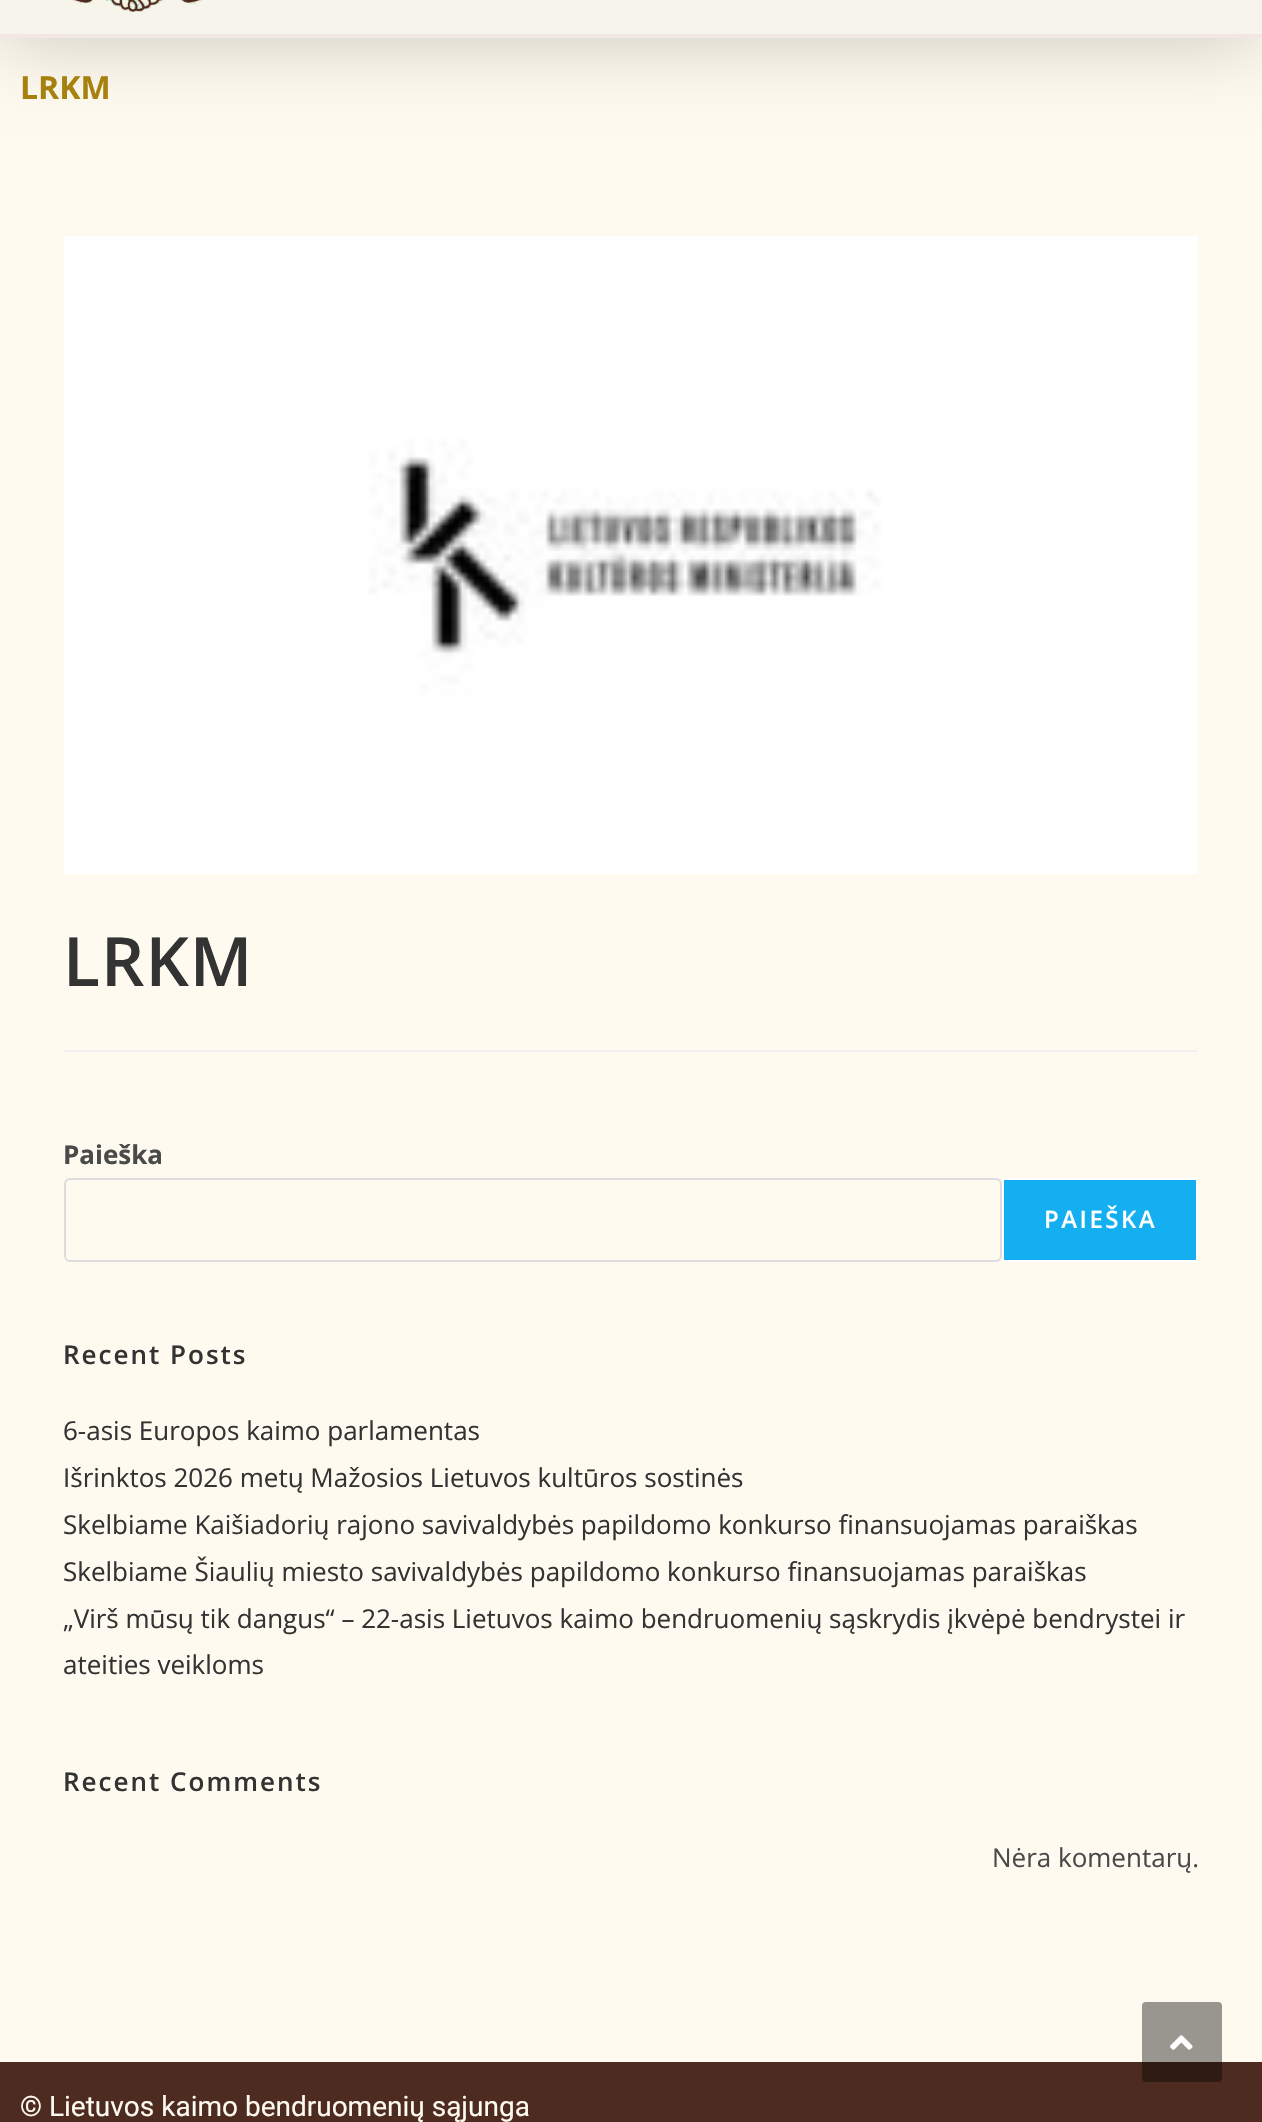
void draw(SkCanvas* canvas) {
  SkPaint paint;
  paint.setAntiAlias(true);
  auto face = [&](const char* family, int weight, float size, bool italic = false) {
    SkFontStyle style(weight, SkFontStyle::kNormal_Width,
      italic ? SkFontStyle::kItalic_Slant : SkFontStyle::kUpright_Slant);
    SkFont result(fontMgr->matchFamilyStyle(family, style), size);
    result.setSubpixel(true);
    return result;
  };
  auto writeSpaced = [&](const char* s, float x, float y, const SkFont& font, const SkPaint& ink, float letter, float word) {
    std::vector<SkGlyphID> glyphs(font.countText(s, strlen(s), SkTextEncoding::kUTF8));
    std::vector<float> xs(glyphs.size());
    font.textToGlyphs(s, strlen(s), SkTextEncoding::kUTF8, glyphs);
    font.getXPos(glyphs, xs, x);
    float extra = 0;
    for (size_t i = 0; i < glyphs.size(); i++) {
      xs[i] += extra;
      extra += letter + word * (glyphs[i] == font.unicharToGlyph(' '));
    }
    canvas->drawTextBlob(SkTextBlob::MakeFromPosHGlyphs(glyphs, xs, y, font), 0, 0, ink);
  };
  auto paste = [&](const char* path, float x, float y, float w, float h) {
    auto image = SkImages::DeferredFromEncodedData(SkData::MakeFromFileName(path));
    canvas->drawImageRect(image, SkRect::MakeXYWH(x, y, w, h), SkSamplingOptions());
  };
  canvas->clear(0xfffefaef);
  paint.setColor(0x33000000);
  paint.setMaskFilter(SkMaskFilter::MakeBlur(kNormal_SkBlurStyle, 40));
  canvas->drawRect(SkRect::MakeXYWH(0, -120, 1262, 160), paint);
  paint.setMaskFilter(nullptr);
  paint.setColor(0xfff1e7e3);
  canvas->drawRect(SkRect::MakeXYWH(0, 34, 1262, 4), paint);
  paint.setColor(0xfff6f4eb);
  canvas->drawRect(SkRect::MakeXYWH(0, 0, 1262, 34), paint);
  paste("img/1.png", 30, 0, 174, 14);
  paste("img/2.png", 64, 236, 1134, 638);
  paint.setColor(0xfff1f1f1);
  canvas->drawRect(SkRect::MakeXYWH(64, 1050, 1134, 2), paint);
  paint.setStroke(true);
  paint.setStrokeWidth(2);
  paint.setColor(0xffdddddd);
  canvas->drawRoundRect(SkRect::MakeXYWH(65, 1179, 936, 82), 5, 5, paint);
  paint.setStroke(false);
  paint.setColor(0xff13aff0);
  canvas->drawRect(SkRect::MakeXYWH(1003, 1179, 194, 82), paint);
  paint.setStroke(true);
  paint.setColor(0xffffffff);
  canvas->drawRect(SkRect::MakeXYWH(1003, 1179, 194, 82), paint);
  paint.setStroke(false);
  paint.setColor(0xff4d2b21);
  canvas->drawRect(SkRect::MakeXYWH(0, 2062, 1262, 60), paint);
  paint.setColor(0x66000000);
  canvas->drawRoundRect(SkRect::MakeXYWH(1142, 2002, 80, 80), 4, 4, paint);
  paste("img/3.png", 1170, 2035, 23, 15);
  auto f0 = face("Open Sans", 700, 32);
  paint.setColor(0xffa7810d);
  canvas->drawString("LRKM", 20, 99, f0, paint);
  auto f1 = face("Open Sans", 600, 68);
  paint.setColor(0xff333333);
  writeSpaced("LRKM", 63, 986, f1, paint, 1, 0);
  auto f2 = face("Open Sans", 700, 26);
  paint.setColor(0xff4a4a4a);
  canvas->drawString("Paieška", 63, 1164, f2, paint);
  auto f3 = face("Open Sans", 600, 24);
  paint.setColor(0xffffffff);
  writeSpaced("PAIEŠKA", 1044, 1228, f3, paint, 2.5f, 0);
  auto f4 = face("Open Sans", 600, 26);
  paint.setColor(0xff333333);
  writeSpaced("Recent Posts", 63, 1364, f4, paint, 2, 0);
  auto f5 = face("Open Sans", 400, 26);
  {
    const struct { const char* s; float x, y; } items[] = {
      {"6-asis Europos kaimo parlamentas", 63, 1440},
      {"Išrinktos 2026 metų Mažosios Lietuvos kultūros sostinės", 63, 1487},
      {"Skelbiame Kaišiadorių rajono savivaldybės papildomo konkurso finansuojamas paraiškas", 63, 1534},
      {"Skelbiame Šiaulių miesto savivaldybės papildomo konkurso finansuojamas paraiškas", 63, 1581},
      {"„Virš mūsų tik dangus“ – 22-asis Lietuvos kaimo bendruomenių sąskrydis įkvėpė bendrystei ir", 63, 1628},
      {"ateities veikloms", 63, 1674},
    };
    for (auto [s, x, y] : items) {
      canvas->drawString(s, x, y, f5, paint);
    }
  }
  writeSpaced("Recent Comments", 63, 1791, f4, paint, 2, 0);
  paint.setColor(0xff4a4a4a);
  canvas->drawString("Nėra komentarų.", 992, 1867, f5, paint);
  auto f6 = face("Roboto", 400, 28);
  paint.setColor(0xfffefaef);
  canvas->drawString("© Lietuvos kaimo bendruomenių sąjunga", 20, 2116, f6, paint);
}
